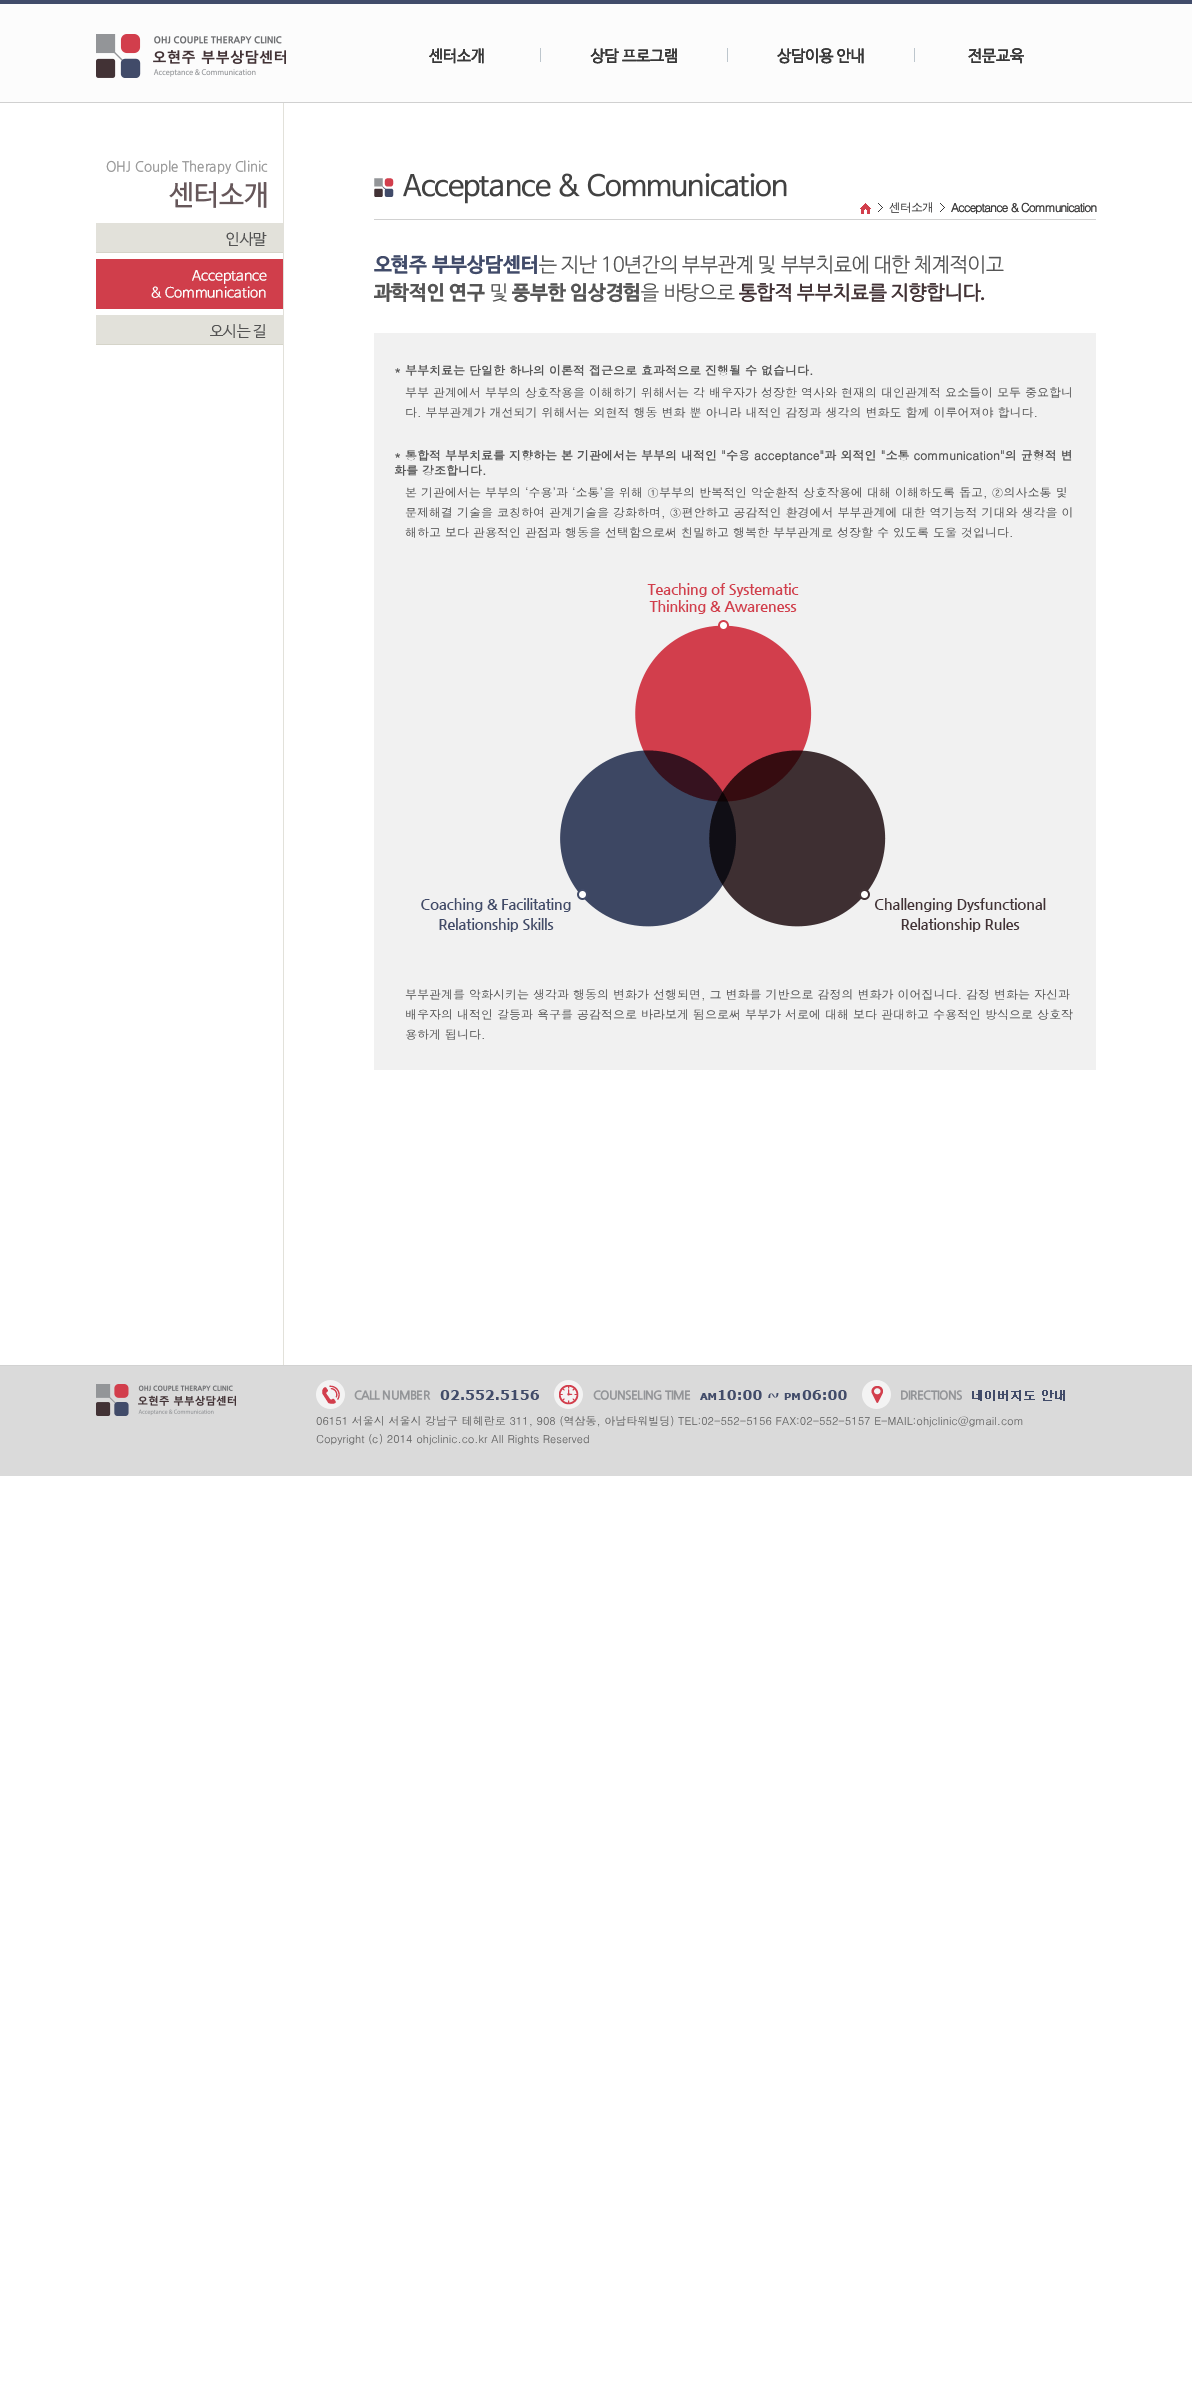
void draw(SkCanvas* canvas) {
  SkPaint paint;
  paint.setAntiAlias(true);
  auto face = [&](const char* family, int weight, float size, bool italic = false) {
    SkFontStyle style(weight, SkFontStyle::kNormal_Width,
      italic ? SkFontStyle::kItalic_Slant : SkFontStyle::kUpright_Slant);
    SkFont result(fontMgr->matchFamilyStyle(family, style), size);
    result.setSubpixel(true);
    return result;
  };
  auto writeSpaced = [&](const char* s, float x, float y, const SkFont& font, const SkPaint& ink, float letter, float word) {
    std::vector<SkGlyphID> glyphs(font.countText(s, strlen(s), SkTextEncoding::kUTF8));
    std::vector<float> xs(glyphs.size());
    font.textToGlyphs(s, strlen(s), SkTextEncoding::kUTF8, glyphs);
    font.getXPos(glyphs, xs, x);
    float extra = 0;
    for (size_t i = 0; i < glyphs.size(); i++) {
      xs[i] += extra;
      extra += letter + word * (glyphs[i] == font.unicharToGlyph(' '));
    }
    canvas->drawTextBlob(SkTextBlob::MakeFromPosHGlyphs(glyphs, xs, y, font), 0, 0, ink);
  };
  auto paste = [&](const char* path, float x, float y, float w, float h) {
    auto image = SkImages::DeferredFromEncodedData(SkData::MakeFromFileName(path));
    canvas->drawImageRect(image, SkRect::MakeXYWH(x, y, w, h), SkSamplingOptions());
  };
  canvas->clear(0xffffffff);
  {
    const struct { float x, y, w, h; SkColor color; } items[] = {
      {0, 0, 1192, 4, 0xff414c6a},
      {0, 4, 1192, 98, 0xfffcfcfc},
      {0, 102, 1192, 1, 0xffd0d0d0},
    };
    for (auto [x, y, w, h, color] : items) {
      paint.setColor(color);
      canvas->drawRect(SkRect::MakeXYWH(x, y, w, h), paint);
    }
  }
  paste("img/1.png", 96, 34, 190, 44);
  paste("img/2.png", 429, 48, 55, 16);
  paint.setColor(0xffbdc6cd);
  canvas->drawRect(SkRect::MakeXYWH(540, 48, 1, 14), paint);
  paste("img/3.png", 590, 48, 87, 16);
  canvas->drawRect(SkRect::MakeXYWH(727, 48, 1, 14), paint);
  paste("img/4.png", 777, 48, 87, 16);
  canvas->drawRect(SkRect::MakeXYWH(914, 48, 1, 14), paint);
  paste("img/5.png", 968, 48, 56, 16);
  paint.setColor(0xffe2e1da);
  canvas->drawRect(SkRect::MakeXYWH(283, 103, 1, 1262), paint);
  paste("img/6.png", 106, 160, 162, 48);
  paste("img/7.png", 96, 223, 187, 30);
  paste("img/8.png", 96, 259, 187, 50);
  paste("img/9.png", 96, 315, 187, 30);
  paint.setColor(0xffd1d1d1);
  canvas->drawRect(SkRect::MakeXYWH(374, 219, 722, 1), paint);
  paste("img/10.png", 374, 173, 413, 31);
  paste("img/11.png", 860, 203, 11, 11);
  paste("img/12.png", 878, 203, 5, 9);
  paste("img/12.png", 940, 203, 5, 9);
  paste("img/13.png", 374, 255, 630, 48);
  paint.setColor(0xfff1f1f1);
  canvas->drawRect(SkRect::MakeXYWH(374, 333, 722, 737), paint);
  paste("img/14.png", 421, 583, 625, 349);
  paint.setColor(0xffdadada);
  canvas->drawRect(SkRect::MakeXYWH(0, 1366, 1192, 110), paint);
  paint.setColor(0xffd2d2d2);
  canvas->drawRect(SkRect::MakeXYWH(0, 1365, 1192, 1), paint);
  paste("img/15.png", 96, 1384, 140, 32);
  paste("img/16.png", 316, 1380, 223, 29);
  paste("img/17.png", 554, 1380, 293, 29);
  paste("img/18.png", 862, 1380, 203, 29);
  auto f0 = face("Dotum", 400, 12);
  paint.setColor(0xff3c3b3b);
  writeSpaced("센터소개", 889, 212, f0, paint, -1, 0);
  auto f1 = face("Dotum", 700, 12);
  writeSpaced("Acceptance & Communication", 951, 212, f1, paint, -1, 0);
  paint.setColor(0xff555555);
  canvas->drawString("* 부부치료는 단일한 하나의 이론적 접근으로 효과적으로 진행될 수 없습니다.", 394, 375, f1, paint);
  canvas->drawString("부부 관계에서 부부의 상호작용을 이해하기 위해서는 각 배우자가 성장한 역사와 현재의 대인관계적 요소들이 모두 중요합니", 405, 397, f0, paint);
  canvas->drawString("다. 부부관계가 개선되기 위해서는 외현적 행동 변화 뿐 아니라 내적인 감정과 생각의 변화도 함께 이루어져야 합니다.", 405, 417, f0, paint);
  canvas->drawString("* 통합적 부부치료를 지향하는 본 기관에서는 부부의 내적인 \"수용 acceptance\"과 외적인 \"소통 communication\"의 균형적 변", 394, 460, f1, paint);
  canvas->drawString("화를 강조합니다.", 394, 475, f1, paint);
  {
    const struct { const char* s; float x, y; } items[] = {
      {"본 기관에서는 부부의 ‘수용’과 ‘소통’을 위해 ①부부의 반복적인 악순환적 상호작용에 대해 이해하도록 돕고, ②의사소통 및", 405, 497},
      {"문제해결 기술을 코칭하여 관계기술을 강화하며, ③편안하고 공감적인 환경에서 부부관계에 대한 역기능적 기대와 생각을 이", 405, 517},
      {"해하고 보다 관용적인 관점과 행동을 선택함으로써 친밀하고 행복한 부부관계로 성장할 수 있도록 도울 것입니다.", 405, 537},
      {"부부관계를 악화시키는 생각과 행동의 변화가 선행되면, 그 변화를 기반으로 감정의 변화가 이어집니다. 감정 변화는 자신과", 405, 999},
      {"배우자의 내적인 갈등과 욕구를 공감적으로 바라보게 됨으로써 부부가 서로에 대해 보다 관대하고 수용적인 방식으로 상호작", 405, 1019},
      {"용하게 됩니다.", 405, 1039},
    };
    for (auto [s, x, y] : items) {
      canvas->drawString(s, x, y, f0, paint);
    }
  }
  auto f2 = face("Dotum", 400, 11);
  paint.setColor(0xff646464);
  canvas->drawString("06151 서울시 서울시 강남구 테헤란로 311, 908 (역삼동, 아남타워빌딩) TEL:02-552-5156 FAX:02-552-5157 E-MAIL:ohjclinic@gmail.com", 316, 1425, f2, paint);
  canvas->drawString("Copyright (", 316, 1443, f2, paint);
  paint.setColor(0xff555555);
  canvas->drawString("c", 372, 1443, f2, paint);
  paint.setColor(0xff646464);
  canvas->drawString(") 2014 ohjclinic.co.kr All Rights Reserved", 379, 1443, f2, paint);
}
